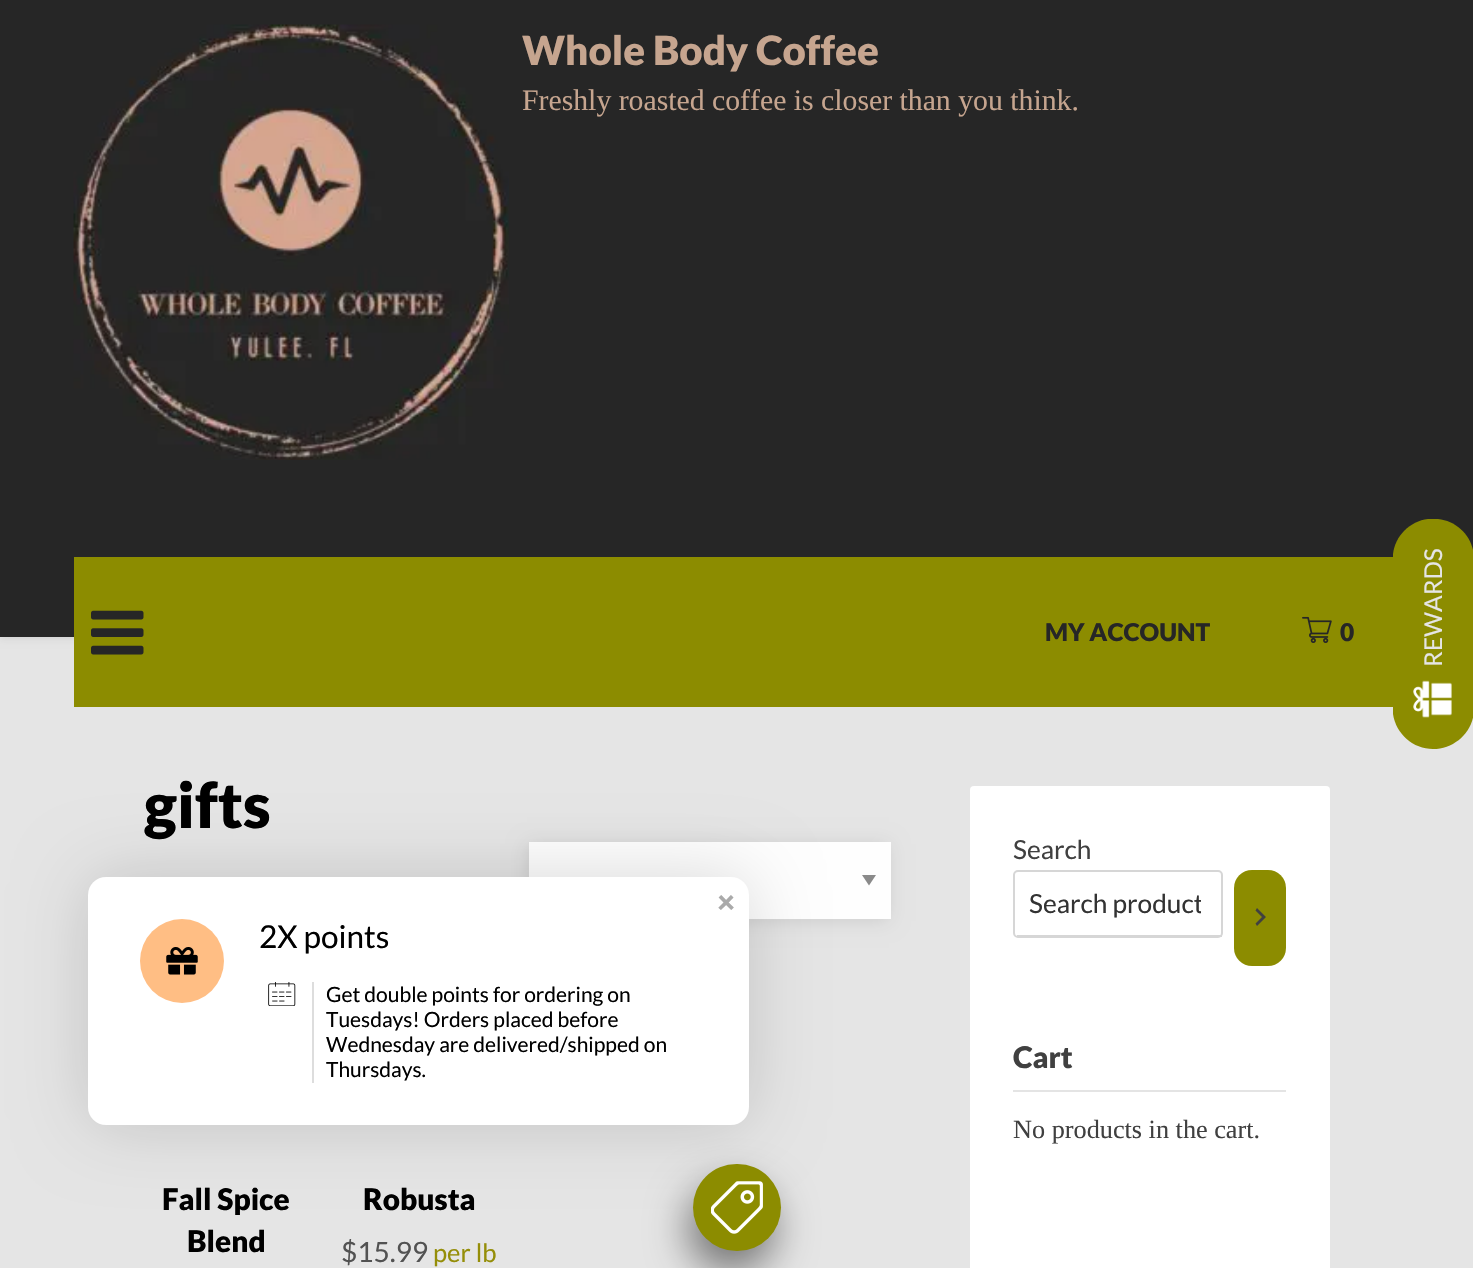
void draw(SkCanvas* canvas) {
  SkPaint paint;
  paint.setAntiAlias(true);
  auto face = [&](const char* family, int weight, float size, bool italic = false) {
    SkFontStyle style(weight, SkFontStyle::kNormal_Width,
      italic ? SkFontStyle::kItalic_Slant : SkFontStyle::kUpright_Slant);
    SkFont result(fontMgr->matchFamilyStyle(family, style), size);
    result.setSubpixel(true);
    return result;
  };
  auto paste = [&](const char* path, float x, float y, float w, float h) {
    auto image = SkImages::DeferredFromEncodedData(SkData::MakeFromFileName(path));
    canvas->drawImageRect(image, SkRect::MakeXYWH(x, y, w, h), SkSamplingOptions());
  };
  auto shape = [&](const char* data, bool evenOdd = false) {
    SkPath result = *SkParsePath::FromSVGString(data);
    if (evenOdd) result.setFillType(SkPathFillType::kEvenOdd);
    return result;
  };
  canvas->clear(0xffe5e5e5);
  paint.setColor(0x14000000);
  paint.setMaskFilter(SkMaskFilter::MakeBlur(kNormal_SkBlurStyle, 3.5f));
  canvas->drawRect(SkRect::MakeXYWH(0, 2, 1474, 637), paint);
  paint.setMaskFilter(nullptr);
  paint.setColor(0xff262626);
  canvas->drawRect(SkRect::MakeXYWH(0, 0, 1473, 637), paint);
  paste("img/1.png", 73, 24, 436, 436);
  paint.setColor(0xff8c8c00);
  canvas->drawRect(SkRect::MakeXYWH(74, 557, 1319, 150), paint);
  paste("img/2.png", 91, 610, 53, 45);
  paste("img/3.png", 1302, 616, 30, 27);
  canvas->drawPath(shape("M1438 519C1458 521 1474 538 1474 559V709C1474 731 1455 749 1433 749C1413 749 1396 734 1393 714V554C1395 536 1410 521 1428 519Z"), paint);
  paste("img/4.png", 1413, 680, 39, 38);
  paint.setColor(0x1a000000);
  paint.setMaskFilter(SkMaskFilter::MakeBlur(kNormal_SkBlurStyle, 9));
  canvas->drawRect(SkRect::MakeXYWH(527, 844, 362, 77), paint);
  paint.setMaskFilter(nullptr);
  paint.setColor(0xfffefefe);
  canvas->drawRect(SkRect::MakeXYWH(529, 842, 362, 77), paint);
  paint.setColor(0xff8a8a8a);
  canvas->drawPath(shape("M862 875H876L869 885.5Z"), paint);
  paint.setColor(0xffffffff);
  canvas->drawRoundRect(SkRect::MakeXYWH(970, 786, 360, 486), 4, 4, paint);
  paint.setStroke(true);
  paint.setStrokeWidth(2);
  paint.setColor(0xffd6d6d6);
  canvas->drawRoundRect(SkRect::MakeXYWH(1014, 871, 208, 66), 4, 4, paint);
  paint.setStroke(false);
  canvas->drawRect(SkRect::MakeXYWH(1017, 935, 205, 2), paint);
  paint.setColor(0xff8c8c00);
  canvas->drawRoundRect(SkRect::MakeXYWH(1234, 870, 52, 96), 18, 18, paint);
  paint.setColor(0xff404040);
  canvas->drawPath(shape("M1255.5 923.5L1262 917L1255.5 910.5L1257 908L1266 917L1257 926Z"), paint);
  paint.setColor(0xffe4e4e4);
  canvas->drawRect(SkRect::MakeXYWH(1013, 1090, 273, 2), paint);
  paint.setColor(0x26000000);
  paint.setMaskFilter(SkMaskFilter::MakeBlur(kNormal_SkBlurStyle, 35));
  canvas->drawRoundRect(SkRect::MakeXYWH(88, 877, 661, 248), 18, 18, paint);
  paint.setMaskFilter(nullptr);
  paint.setColor(0xffffffff);
  canvas->drawRoundRect(SkRect::MakeXYWH(88, 877, 661, 248), 18, 18, paint);
  paint.setColor(0xffffbe84);
  canvas->drawCircle(182, 961, 42, paint);
  paste("img/5.png", 166, 947, 32, 28);
  paint.setColor(0xffdddddd);
  canvas->drawRect(SkRect::MakeXYWH(312, 982, 2, 101), paint);
  paste("img/6.png", 268, 982, 28, 24);
  paint.setColor(0x80000000);
  paint.setMaskFilter(SkMaskFilter::MakeBlur(kNormal_SkBlurStyle, 21));
  canvas->drawRoundRect(SkRect::MakeXYWH(688, 1185, 87, 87), 43.5f, 43.5f, paint);
  paint.setMaskFilter(nullptr);
  paint.setColor(0xff8c8c00);
  canvas->drawRoundRect(SkRect::MakeXYWH(693, 1164, 88, 87), 43.5f, 43.5f, paint);
  paste("img/7.png", 711, 1181, 52, 53);
  auto f0 = face("Lato", 900, 40.25f);
  paint.setColor(0xffc6a58f);
  canvas->drawString("Whole Body Coffee", 522, 65, f0, paint);
  auto f1 = face("Liberation Serif", 400, 29.75f);
  canvas->drawString("Freshly roasted coffee is closer than you think.", 522, 110, f1, paint);
  auto f2 = face("Lato", 900, 24.5f);
  paint.setColor(0xff262626);
  canvas->drawString("MY ACCOUNT", 1045, 641, f2, paint);
  canvas->drawString("0", 1340, 641, f2, paint);
  auto f3 = face("Lato", 400, 24.5f);
  paint.setColor(0xffe5e5e5);
  canvas->save();
  canvas->rotate(-90, 1442, 667);
  canvas->drawString("REWARDS", 1442, 667, f3, paint);
  canvas->restore();
  auto f4 = face("Lato", 900, 63);
  paint.setColor(0xff000000);
  canvas->drawString("gifts", 144, 828, f4, paint);
  auto f5 = face("Lato", 900, 29.75f);
  {
    const struct { const char* s; float x, y; } items[] = {
      {"Fall Spice", 162, 1210},
      {"Blend", 187, 1252},
      {"Robusta", 363, 1210},
    };
    for (auto [s, x, y] : items) {
      canvas->drawString(s, x, y, f5, paint);
    }
  }
  auto f6 = face("Lato", 400, 28);
  paint.setColor(0xff525252);
  canvas->drawString("$15.99", 341, 1262, f6, paint);
  auto f7 = face("Lato", 400, 25.5f);
  paint.setColor(0xff958e09);
  canvas->drawString("per lb", 433, 1262, f7, paint);
  auto f8 = face("Lato", 400, 26.25f);
  paint.setColor(0xff404040);
  canvas->drawString("Search", 1013, 859, f8, paint);
  canvas->save();
  canvas->clipRect(SkRect::MakeXYWH(1029, 887, 172, 32));
  paint.setColor(0xff333333);
  canvas->drawString("Search product", 1029, 913, f8, paint);
  canvas->restore();
  paint.setColor(0xff404040);
  canvas->drawString("Cart", 1013, 1068, f5, paint);
  auto f9 = face("Liberation Serif", 400, 26.25f);
  canvas->drawString("No products in the cart.", 1013, 1138, f9, paint);
  auto f10 = face("Lato", 900, 31.5f);
  paint.setColor(0xffaaaaaa);
  canvas->drawString("×", 717, 913, f10, paint);
  auto f11 = face("Lato", 400, 31.5f);
  paint.setColor(0xff000000);
  canvas->drawString("2X points", 259, 948, f11, paint);
  auto f12 = face("Lato", 400, 21);
  {
    const struct { const char* s; float x, y; } items[] = {
      {"Get double points for ordering on", 326, 1002},
      {"Tuesdays! Orders placed before", 326, 1027},
      {"Wednesday are delivered/shipped on", 326, 1052},
      {"Thursdays.", 326, 1077},
    };
    for (auto [s, x, y] : items) {
      canvas->drawString(s, x, y, f12, paint);
    }
  }
}
